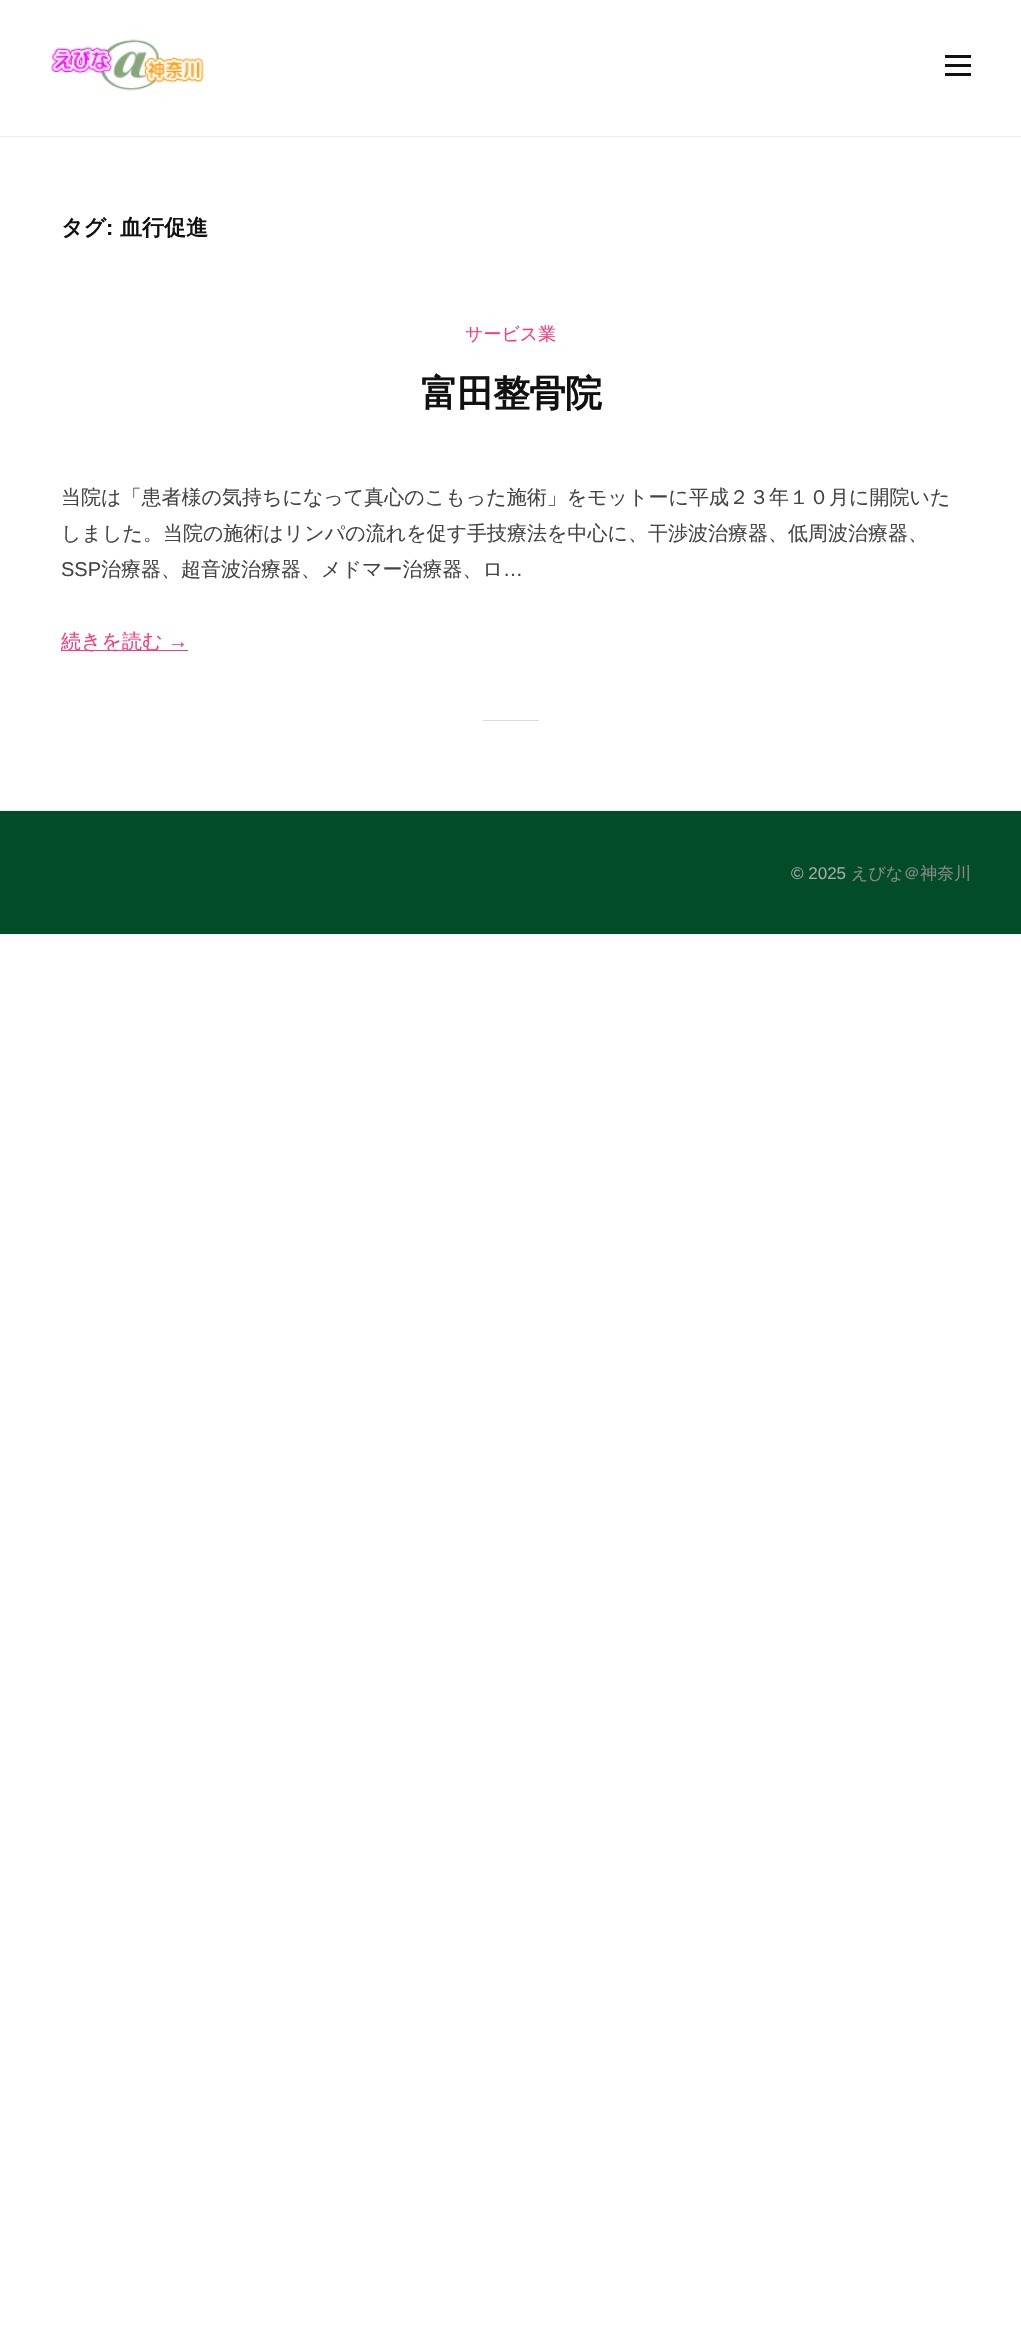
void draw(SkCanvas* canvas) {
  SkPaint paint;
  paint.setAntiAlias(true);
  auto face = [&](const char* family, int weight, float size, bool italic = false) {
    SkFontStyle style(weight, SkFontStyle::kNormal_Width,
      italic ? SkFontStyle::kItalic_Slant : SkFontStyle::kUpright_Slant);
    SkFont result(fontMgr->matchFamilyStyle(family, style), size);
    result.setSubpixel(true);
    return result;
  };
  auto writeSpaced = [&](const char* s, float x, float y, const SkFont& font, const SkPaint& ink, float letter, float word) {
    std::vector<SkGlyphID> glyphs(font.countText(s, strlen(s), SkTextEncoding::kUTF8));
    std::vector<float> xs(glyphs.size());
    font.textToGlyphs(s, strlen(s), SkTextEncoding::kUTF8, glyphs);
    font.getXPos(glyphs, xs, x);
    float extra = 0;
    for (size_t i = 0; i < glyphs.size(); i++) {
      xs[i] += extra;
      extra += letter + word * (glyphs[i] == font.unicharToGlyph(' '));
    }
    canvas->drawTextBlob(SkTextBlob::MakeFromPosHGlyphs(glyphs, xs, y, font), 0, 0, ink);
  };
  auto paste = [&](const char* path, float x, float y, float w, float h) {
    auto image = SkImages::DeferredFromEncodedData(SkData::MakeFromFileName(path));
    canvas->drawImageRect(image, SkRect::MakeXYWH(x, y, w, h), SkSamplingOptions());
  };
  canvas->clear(0xffffffff);
  paint.setColor(0xffeeeeee);
  canvas->drawRect(SkRect::MakeXYWH(0, 136, 1021, 1), paint);
  paste("img/1.png", 51, 39, 153, 52);
  {
    const struct { float x, y, w, h; SkColor color; } items[] = {
      {945, 64, 26, 3, 0xff111111},
      {945, 55, 26, 3, 0xff111111},
      {945, 73, 26, 3, 0xff111111},
      {61, 650, 127, 1, 0xffff387a},
      {483, 720, 56, 1, 0xffdddddd},
      {0, 811, 1021, 123, 0xff034c28},
      {0, 810, 1021, 1, 0xffeeeeee},
    };
    for (auto [x, y, w, h, color] : items) {
      paint.setColor(color);
      canvas->drawRect(SkRect::MakeXYWH(x, y, w, h), paint);
    }
  }
  auto f0 = face("WenQuanYi Zen Hei", 700, 22);
  paint.setColor(0xff111111);
  canvas->drawString("タグ", 61, 235, f0, paint);
  auto f1 = face("Liberation Sans", 700, 22);
  canvas->drawString(":", 106, 235, f1, paint);
  canvas->drawString("血行促進", 120, 235, f0, paint);
  auto f2 = face("WenQuanYi Zen Hei", 500, 18);
  paint.setColor(0xffff387a);
  canvas->drawString("サービス業", 465, 340, f2, paint);
  auto f3 = face("WenQuanYi Zen Hei", 700, 37);
  paint.setColor(0xff111111);
  writeSpaced("富田整骨院", 421, 406, f3, paint, -1, 0);
  auto f4 = face("WenQuanYi Zen Hei", 500, 20);
  paint.setColor(0xff444444);
  canvas->drawString("当院は「患者様の気持ちになって真心のこもった施術」をモットーに平成２３年１０月に開院いた", 61, 504, f4, paint);
  canvas->drawString("しました。当院の施術はリンパの流れを促す手技療法を中心に、干渉波治療器、低周波治療器、", 61, 540, f4, paint);
  auto f5 = face("Liberation Sans", 400, 20);
  canvas->drawString("SSP", 61, 576, f5, paint);
  canvas->drawString("治療器、超音波治療器、メドマー治療器、ロ", 101, 576, f4, paint);
  canvas->drawString("…", 503, 576, f5, paint);
  paint.setColor(0xffff387a);
  canvas->drawString("続きを読む", 61, 648, f4, paint);
  canvas->drawString("→", 168, 648, f5, paint);
  auto f6 = face("Liberation Sans", 400, 17);
  paint.setColor(0xffaaaaaa);
  canvas->drawString("© 2025", 791, 879, f6, paint);
  auto f7 = face("WenQuanYi Zen Hei", 500, 17);
  paint.setColor(0xff888888);
  canvas->drawString("えびな＠神奈川", 851, 879, f7, paint);
}
